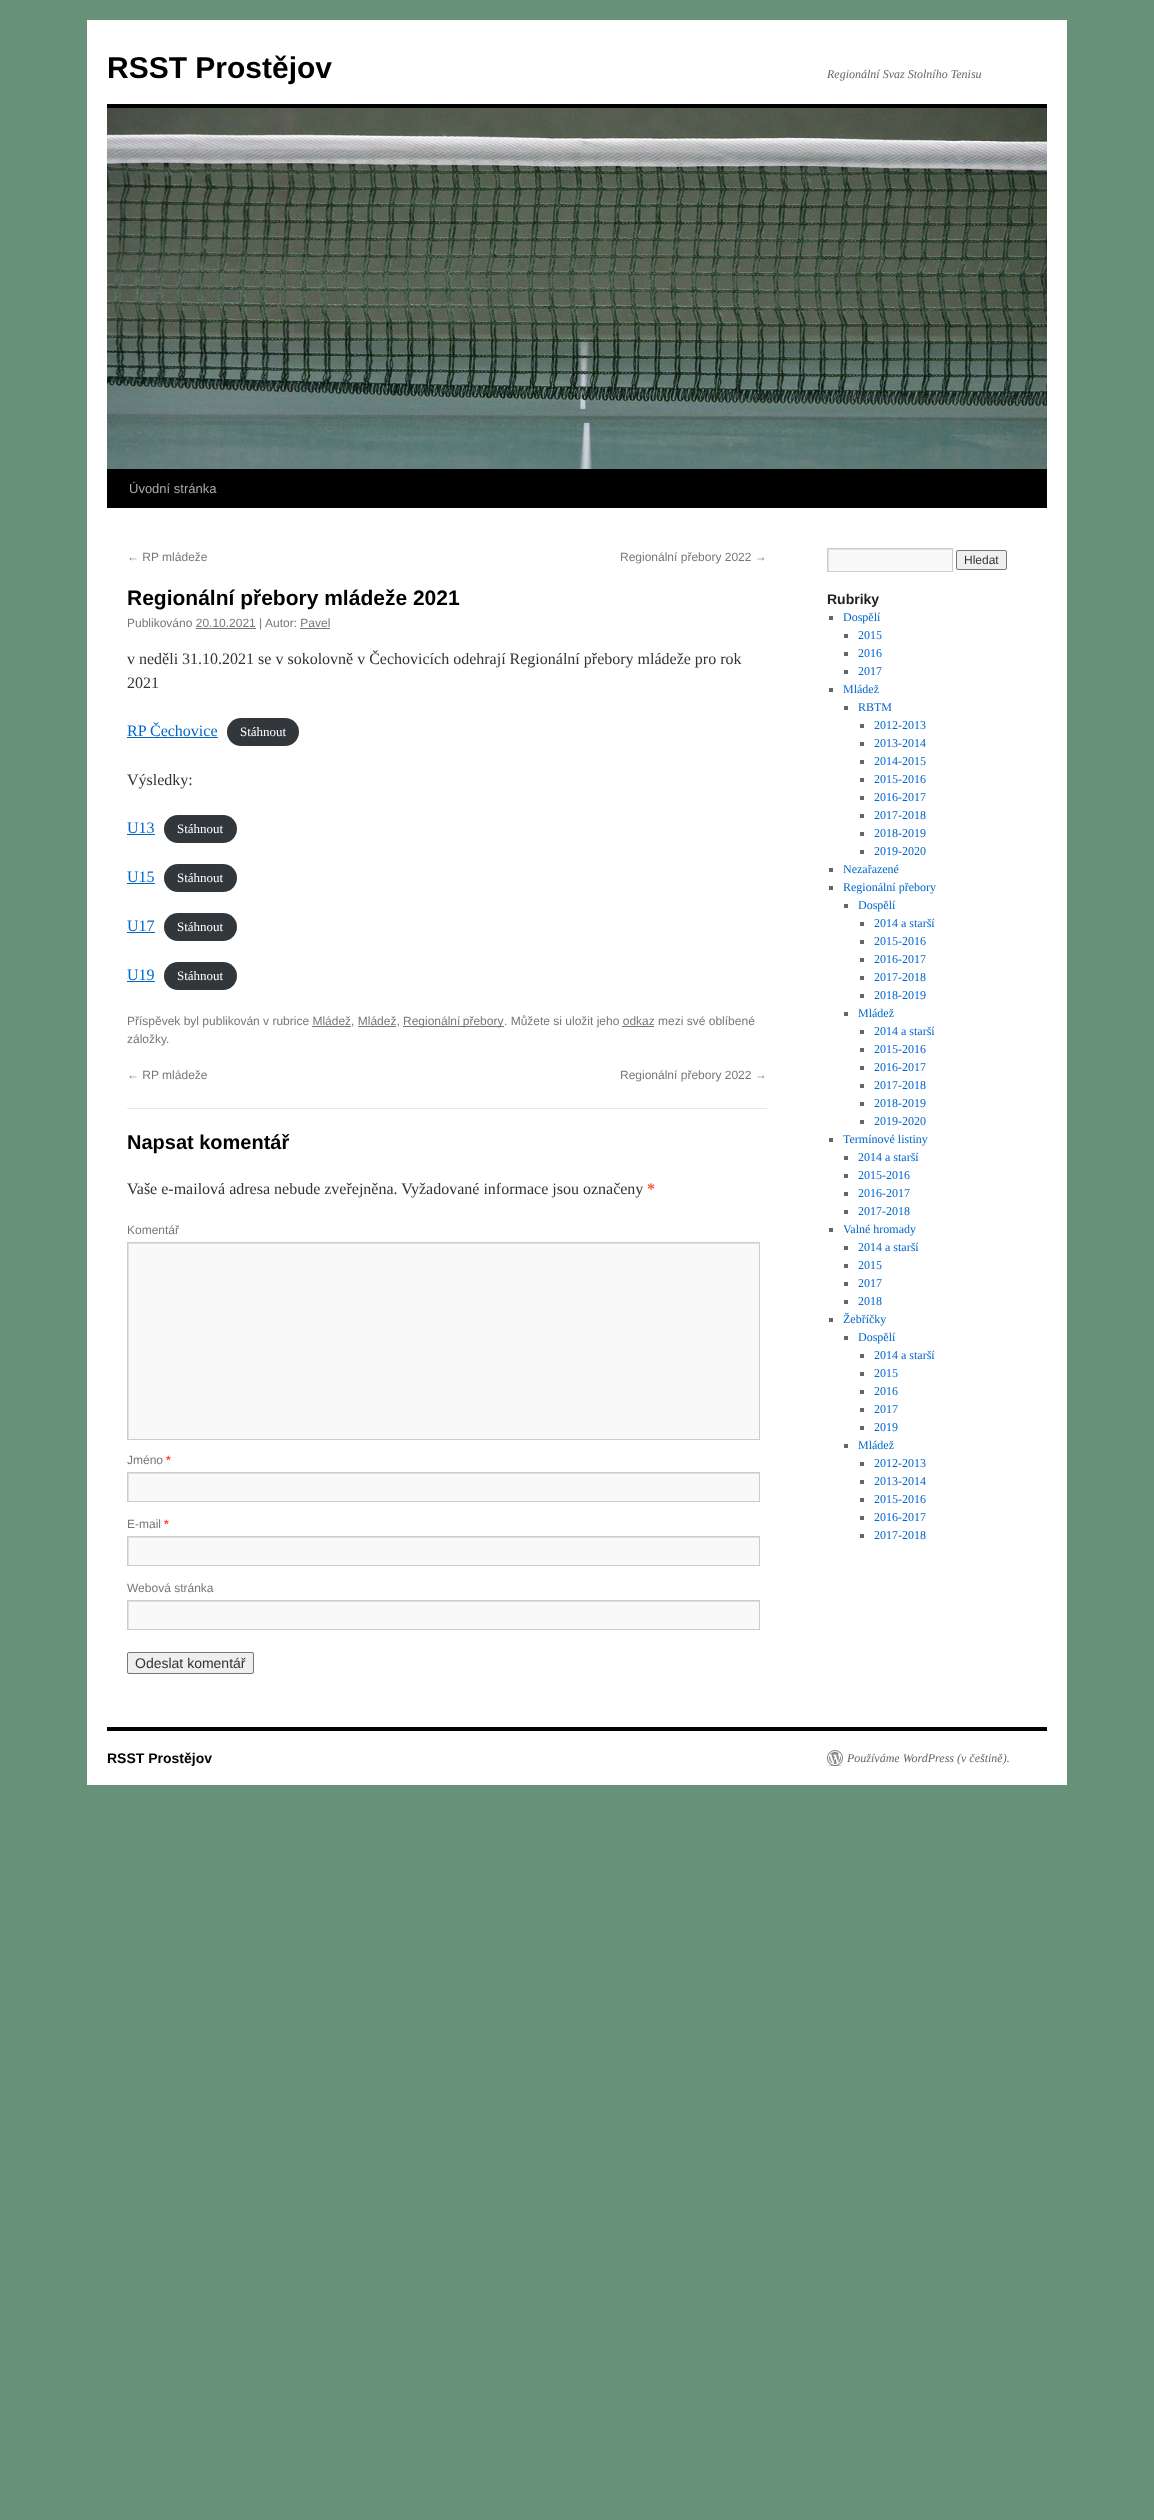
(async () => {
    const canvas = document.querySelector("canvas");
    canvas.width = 1154;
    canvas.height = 2520;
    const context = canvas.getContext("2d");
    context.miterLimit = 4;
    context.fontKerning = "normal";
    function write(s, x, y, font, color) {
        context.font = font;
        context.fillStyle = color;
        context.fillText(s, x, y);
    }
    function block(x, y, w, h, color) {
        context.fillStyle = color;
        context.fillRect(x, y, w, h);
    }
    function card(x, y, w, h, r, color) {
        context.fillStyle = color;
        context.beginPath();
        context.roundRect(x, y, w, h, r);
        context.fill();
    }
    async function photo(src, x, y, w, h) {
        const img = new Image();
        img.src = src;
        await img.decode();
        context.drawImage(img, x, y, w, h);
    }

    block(0, 0, 1154, 2520, "rgb(104, 145, 121)");
    block(87, 20, 980, 1765, "rgb(255, 255, 255)");
    write("RSST Prostějov", 107, 78, "bold 30px Liberation Sans", "rgb(0, 0, 0)");
    write("Regionální Svaz Stolního Tenisu", 827, 78, "italic 12px Liberation Serif", "rgb(102, 102, 102)");
    block(107, 104, 940, 4, "rgb(0, 0, 0)");
    block(107, 469, 940, 39, "rgb(0, 0, 0)");
    await photo("media/1.png", 107, 108, 940, 361);
    write("Úvodní stránka", 129, 493, "13px Liberation Sans", "rgb(170, 170, 170)");
    write("← RP mládeže", 127, 561, "12px Liberation Sans", "rgb(119, 119, 119)");
    write("Regionální přebory 2022 →", 620, 561, "12px Liberation Sans", "rgb(119, 119, 119)");
    write("Regionální přebory mládeže 2021", 127, 605, "bold 21px Liberation Sans", "rgb(0, 0, 0)");
    write("Publikováno 20.10.2021", 127, 627, "12px Liberation Sans", "rgb(119, 119, 119)");
    write("|", 259, 627, "12px Liberation Sans", "rgb(119, 119, 119)");
    write("Autor: Pavel", 265, 627, "12px Liberation Sans", "rgb(119, 119, 119)");
    block(196, 628, 60, 1, "rgb(119, 119, 119)");
    block(300, 628, 30, 1, "rgb(119, 119, 119)");
    write("v neděli 31.10.2021 se v sokolovně v Čechovicích odehrají Regionální přebory mládeže pro rok", 127, 664, "16px Liberation Serif", "rgb(51, 51, 51)");
    write("2021", 127, 688, "16px Liberation Serif", "rgb(51, 51, 51)");
    write("RP Čechovice", 127, 736, "16px Liberation Serif", "rgb(0, 102, 204)");
    block(127, 737, 91, 1, "rgb(0, 102, 204)");
    card(227, 718, 72, 28, 14, "rgb(50, 55, 60)");
    write("Stáhnout", 240, 736, "13px Liberation Serif", "rgb(255, 255, 255)");
    write("Výsledky:", 127, 785, "16px Liberation Serif", "rgb(51, 51, 51)");
    write("U13", 127, 833, "16px Liberation Serif", "rgb(0, 102, 204)");
    block(127, 834, 28, 1, "rgb(0, 102, 204)");
    card(164, 815, 73, 28, 14, "rgb(50, 55, 60)");
    write("Stáhnout", 177, 833, "13px Liberation Serif", "rgb(255, 255, 255)");
    write("U15", 127, 882, "16px Liberation Serif", "rgb(0, 102, 204)");
    block(127, 883, 28, 1, "rgb(0, 102, 204)");
    card(164, 864, 73, 28, 14, "rgb(50, 55, 60)");
    write("Stáhnout", 177, 882, "13px Liberation Serif", "rgb(255, 255, 255)");
    write("U17", 127, 931, "16px Liberation Serif", "rgb(0, 102, 204)");
    block(127, 932, 28, 1, "rgb(0, 102, 204)");
    card(164, 913, 73, 28, 14, "rgb(50, 55, 60)");
    write("Stáhnout", 177, 931, "13px Liberation Serif", "rgb(255, 255, 255)");
    write("U19", 127, 980, "16px Liberation Serif", "rgb(0, 102, 204)");
    block(127, 981, 28, 1, "rgb(0, 102, 204)");
    card(164, 962, 73, 28, 14, "rgb(50, 55, 60)");
    write("Stáhnout", 177, 980, "13px Liberation Serif", "rgb(255, 255, 255)");
    write("Příspěvek byl publikován v rubrice Mládež, Mládež,", 127, 1025, "12px Liberation Sans", "rgb(119, 119, 119)");
    block(403, 1026, 101, 1, "rgb(119, 119, 119)");
    context.wordSpacing = "-1px";
    write("Regionální přebory", 403, 1025, "12px Liberation Sans", "rgb(119, 119, 119)");
    context.wordSpacing = "0px";
    write(". Můžete si uložit jeho odkaz mezi své oblíbené", 504, 1025, "12px Liberation Sans", "rgb(119, 119, 119)");
    block(312, 1026, 39, 1, "rgb(119, 119, 119)");
    block(358, 1026, 38, 1, "rgb(119, 119, 119)");
    block(622, 1026, 32, 1, "rgb(119, 119, 119)");
    write("záložky.", 127, 1043, "12px Liberation Sans", "rgb(119, 119, 119)");
    write("← RP mládeže", 127, 1079, "12px Liberation Sans", "rgb(119, 119, 119)");
    write("Regionální přebory 2022 →", 620, 1079, "12px Liberation Sans", "rgb(119, 119, 119)");
    block(127, 1108, 640, 1, "rgb(231, 231, 231)");
    write("Napsat komentář", 127, 1149, "bold 20px Liberation Sans", "rgb(0, 0, 0)");
    write("Vaše e-mailová adresa nebude zveřejněna. Vyžadované informace jsou označeny", 127, 1194, "16px Liberation Serif", "rgb(51, 51, 51)");
    write("*", 647, 1194, "bold 16px Liberation Serif", "rgb(255, 75, 51)");
    write("Komentář", 127, 1234, "12px Liberation Sans", "rgb(119, 119, 119)");
    block(129, 1244, 630, 195, "rgb(249, 249, 249)");
    context.save();
    context.beginPath();
    context.rect(128, 1243, 631, 196);
    context.clip();
    context.fillStyle = "rgb(224, 224, 224)";
    context.beginPath();
    context.moveTo(29, 1144);
    context.lineTo(858, 1144);
    context.lineTo(858, 1538);
    context.lineTo(29, 1538);
    context.closePath();
    context.moveTo(129, 1244);
    context.lineTo(760, 1244);
    context.lineTo(760, 1440);
    context.lineTo(129, 1440);
    context.closePath();
    context.fill("evenodd");
    context.restore();
    context.strokeStyle = "rgb(204, 204, 204)";
    context.strokeRect(127.5, 1242.5, 632, 197);
    write("Jméno", 127, 1464, "12px Liberation Sans", "rgb(119, 119, 119)");
    write("*", 166, 1464, "bold 12px Liberation Sans", "rgb(255, 75, 51)");
    block(129, 1474, 630, 27, "rgb(249, 249, 249)");
    context.save();
    context.beginPath();
    context.rect(128, 1473, 631, 28);
    context.clip();
    context.fillStyle = "rgb(224, 224, 224)";
    context.beginPath();
    context.moveTo(29, 1374);
    context.lineTo(858, 1374);
    context.lineTo(858, 1600);
    context.lineTo(29, 1600);
    context.closePath();
    context.moveTo(129, 1474);
    context.lineTo(760, 1474);
    context.lineTo(760, 1502);
    context.lineTo(129, 1502);
    context.closePath();
    context.fill("evenodd");
    context.restore();
    context.strokeRect(127.5, 1472.5, 632, 29);
    write("E-mail", 127, 1528, "12px Liberation Sans", "rgb(119, 119, 119)");
    write("*", 164, 1528, "bold 12px Liberation Sans", "rgb(255, 75, 51)");
    block(129, 1538, 630, 27, "rgb(249, 249, 249)");
    context.save();
    context.beginPath();
    context.rect(128, 1537, 631, 28);
    context.clip();
    context.fillStyle = "rgb(224, 224, 224)";
    context.beginPath();
    context.moveTo(29, 1438);
    context.lineTo(858, 1438);
    context.lineTo(858, 1664);
    context.lineTo(29, 1664);
    context.closePath();
    context.moveTo(129, 1538);
    context.lineTo(760, 1538);
    context.lineTo(760, 1566);
    context.lineTo(129, 1566);
    context.closePath();
    context.fill("evenodd");
    context.restore();
    context.strokeRect(127.5, 1536.5, 632, 29);
    write("Webová stránka", 127, 1592, "12px Liberation Sans", "rgb(119, 119, 119)");
    block(129, 1602, 630, 27, "rgb(249, 249, 249)");
    context.save();
    context.beginPath();
    context.rect(128, 1601, 631, 28);
    context.clip();
    context.fillStyle = "rgb(224, 224, 224)";
    context.beginPath();
    context.moveTo(29, 1502);
    context.lineTo(858, 1502);
    context.lineTo(858, 1728);
    context.lineTo(29, 1728);
    context.closePath();
    context.moveTo(129, 1602);
    context.lineTo(760, 1602);
    context.lineTo(760, 1630);
    context.lineTo(129, 1630);
    context.closePath();
    context.fill("evenodd");
    context.restore();
    context.strokeRect(127.5, 1600.5, 632, 29);
    context.fillStyle = "rgb(239, 239, 239)";
    context.beginPath();
    context.roundRect(127.5, 1652.5, 126, 21, 1.5);
    context.fill();
    context.strokeStyle = "rgb(118, 118, 118)";
    context.stroke();
    write("Odeslat komentář", 135, 1668, "14px Liberation Sans", "rgb(51, 51, 51)");
    block(829, 550, 123, 21, "rgb(249, 249, 249)");
    context.save();
    context.beginPath();
    context.rect(828, 549, 124, 22);
    context.clip();
    context.fillStyle = "rgb(224, 224, 224)";
    context.beginPath();
    context.moveTo(729, 450);
    context.lineTo(1051, 450);
    context.lineTo(1051, 670);
    context.lineTo(729, 670);
    context.closePath();
    context.moveTo(829, 550);
    context.lineTo(953, 550);
    context.lineTo(953, 572);
    context.lineTo(829, 572);
    context.closePath();
    context.fill("evenodd");
    context.restore();
    context.strokeStyle = "rgb(204, 204, 204)";
    context.strokeRect(827.5, 548.5, 125, 23);
    context.fillStyle = "rgb(239, 239, 239)";
    context.beginPath();
    context.roundRect(956.5, 550.5, 50, 19, 1.5);
    context.fill();
    context.strokeStyle = "rgb(118, 118, 118)";
    context.stroke();
    write("Hledat", 964, 564, "12px Liberation Sans", "rgb(51, 51, 51)");
    write("Rubriky", 827, 604, "bold 14px Liberation Sans", "rgb(34, 34, 34)");
    block(829, 616, 4, 4, "rgb(102, 102, 102)");
    write("Dospělí", 843, 621, "12px Liberation Serif", "rgb(0, 102, 204)");
    block(844, 634, 4, 4, "rgb(102, 102, 102)");
    write("2015", 858, 639, "12px Liberation Serif", "rgb(0, 102, 204)");
    block(844, 652, 4, 4, "rgb(102, 102, 102)");
    write("2016", 858, 657, "12px Liberation Serif", "rgb(0, 102, 204)");
    block(844, 670, 4, 4, "rgb(102, 102, 102)");
    write("2017", 858, 675, "12px Liberation Serif", "rgb(0, 102, 204)");
    block(829, 688, 4, 4, "rgb(102, 102, 102)");
    write("Mládež", 843, 693, "12px Liberation Serif", "rgb(0, 102, 204)");
    block(844, 706, 4, 4, "rgb(102, 102, 102)");
    write("RBTM", 858, 711, "12px Liberation Serif", "rgb(0, 102, 204)");
    block(860, 724, 4, 4, "rgb(102, 102, 102)");
    write("2012-2013", 874, 729, "12px Liberation Serif", "rgb(0, 102, 204)");
    block(860, 742, 4, 4, "rgb(102, 102, 102)");
    write("2013-2014", 874, 747, "12px Liberation Serif", "rgb(0, 102, 204)");
    block(860, 760, 4, 4, "rgb(102, 102, 102)");
    write("2014-2015", 874, 765, "12px Liberation Serif", "rgb(0, 102, 204)");
    block(860, 778, 4, 4, "rgb(102, 102, 102)");
    write("2015-2016", 874, 783, "12px Liberation Serif", "rgb(0, 102, 204)");
    block(860, 796, 4, 4, "rgb(102, 102, 102)");
    write("2016-2017", 874, 801, "12px Liberation Serif", "rgb(0, 102, 204)");
    block(860, 814, 4, 4, "rgb(102, 102, 102)");
    write("2017-2018", 874, 819, "12px Liberation Serif", "rgb(0, 102, 204)");
    block(860, 832, 4, 4, "rgb(102, 102, 102)");
    write("2018-2019", 874, 837, "12px Liberation Serif", "rgb(0, 102, 204)");
    block(860, 850, 4, 4, "rgb(102, 102, 102)");
    write("2019-2020", 874, 855, "12px Liberation Serif", "rgb(0, 102, 204)");
    block(829, 868, 4, 4, "rgb(102, 102, 102)");
    write("Nezařazené", 843, 873, "12px Liberation Serif", "rgb(0, 102, 204)");
    block(829, 886, 4, 4, "rgb(102, 102, 102)");
    write("Regionální přebory", 843, 891, "12px Liberation Serif", "rgb(0, 102, 204)");
    block(844, 904, 4, 4, "rgb(102, 102, 102)");
    write("Dospělí", 858, 909, "12px Liberation Serif", "rgb(0, 102, 204)");
    block(860, 922, 4, 4, "rgb(102, 102, 102)");
    write("2014 a starší", 874, 927, "12px Liberation Serif", "rgb(0, 102, 204)");
    block(860, 940, 4, 4, "rgb(102, 102, 102)");
    write("2015-2016", 874, 945, "12px Liberation Serif", "rgb(0, 102, 204)");
    block(860, 958, 4, 4, "rgb(102, 102, 102)");
    write("2016-2017", 874, 963, "12px Liberation Serif", "rgb(0, 102, 204)");
    block(860, 976, 4, 4, "rgb(102, 102, 102)");
    write("2017-2018", 874, 981, "12px Liberation Serif", "rgb(0, 102, 204)");
    block(860, 994, 4, 4, "rgb(102, 102, 102)");
    write("2018-2019", 874, 999, "12px Liberation Serif", "rgb(0, 102, 204)");
    block(844, 1012, 4, 4, "rgb(102, 102, 102)");
    write("Mládež", 858, 1017, "12px Liberation Serif", "rgb(0, 102, 204)");
    block(860, 1030, 4, 4, "rgb(102, 102, 102)");
    write("2014 a starší", 874, 1035, "12px Liberation Serif", "rgb(0, 102, 204)");
    block(860, 1048, 4, 4, "rgb(102, 102, 102)");
    write("2015-2016", 874, 1053, "12px Liberation Serif", "rgb(0, 102, 204)");
    block(860, 1066, 4, 4, "rgb(102, 102, 102)");
    write("2016-2017", 874, 1071, "12px Liberation Serif", "rgb(0, 102, 204)");
    block(860, 1084, 4, 4, "rgb(102, 102, 102)");
    write("2017-2018", 874, 1089, "12px Liberation Serif", "rgb(0, 102, 204)");
    block(860, 1102, 4, 4, "rgb(102, 102, 102)");
    write("2018-2019", 874, 1107, "12px Liberation Serif", "rgb(0, 102, 204)");
    block(860, 1120, 4, 4, "rgb(102, 102, 102)");
    write("2019-2020", 874, 1125, "12px Liberation Serif", "rgb(0, 102, 204)");
    block(829, 1138, 4, 4, "rgb(102, 102, 102)");
    write("Termínové listiny", 843, 1143, "12px Liberation Serif", "rgb(0, 102, 204)");
    block(844, 1156, 4, 4, "rgb(102, 102, 102)");
    write("2014 a starší", 858, 1161, "12px Liberation Serif", "rgb(0, 102, 204)");
    block(844, 1174, 4, 4, "rgb(102, 102, 102)");
    write("2015-2016", 858, 1179, "12px Liberation Serif", "rgb(0, 102, 204)");
    block(844, 1192, 4, 4, "rgb(102, 102, 102)");
    write("2016-2017", 858, 1197, "12px Liberation Serif", "rgb(0, 102, 204)");
    block(844, 1210, 4, 4, "rgb(102, 102, 102)");
    write("2017-2018", 858, 1215, "12px Liberation Serif", "rgb(0, 102, 204)");
    block(829, 1228, 4, 4, "rgb(102, 102, 102)");
    write("Valné hromady", 843, 1233, "12px Liberation Serif", "rgb(0, 102, 204)");
    block(844, 1246, 4, 4, "rgb(102, 102, 102)");
    write("2014 a starší", 858, 1251, "12px Liberation Serif", "rgb(0, 102, 204)");
    block(844, 1264, 4, 4, "rgb(102, 102, 102)");
    write("2015", 858, 1269, "12px Liberation Serif", "rgb(0, 102, 204)");
    block(844, 1282, 4, 4, "rgb(102, 102, 102)");
    write("2017", 858, 1287, "12px Liberation Serif", "rgb(0, 102, 204)");
    block(844, 1300, 4, 4, "rgb(102, 102, 102)");
    write("2018", 858, 1305, "12px Liberation Serif", "rgb(0, 102, 204)");
    block(829, 1318, 4, 4, "rgb(102, 102, 102)");
    write("Žebříčky", 843, 1323, "12px Liberation Serif", "rgb(0, 102, 204)");
    block(844, 1336, 4, 4, "rgb(102, 102, 102)");
    write("Dospělí", 858, 1341, "12px Liberation Serif", "rgb(0, 102, 204)");
    block(860, 1354, 4, 4, "rgb(102, 102, 102)");
    write("2014 a starší", 874, 1359, "12px Liberation Serif", "rgb(0, 102, 204)");
    block(860, 1372, 4, 4, "rgb(102, 102, 102)");
    write("2015", 874, 1377, "12px Liberation Serif", "rgb(0, 102, 204)");
    block(860, 1390, 4, 4, "rgb(102, 102, 102)");
    write("2016", 874, 1395, "12px Liberation Serif", "rgb(0, 102, 204)");
    block(860, 1408, 4, 4, "rgb(102, 102, 102)");
    write("2017", 874, 1413, "12px Liberation Serif", "rgb(0, 102, 204)");
    block(860, 1426, 4, 4, "rgb(102, 102, 102)");
    write("2019", 874, 1431, "12px Liberation Serif", "rgb(0, 102, 204)");
    block(844, 1444, 4, 4, "rgb(102, 102, 102)");
    write("Mládež", 858, 1449, "12px Liberation Serif", "rgb(0, 102, 204)");
    block(860, 1462, 4, 4, "rgb(102, 102, 102)");
    write("2012-2013", 874, 1467, "12px Liberation Serif", "rgb(0, 102, 204)");
    block(860, 1480, 4, 4, "rgb(102, 102, 102)");
    write("2013-2014", 874, 1485, "12px Liberation Serif", "rgb(0, 102, 204)");
    block(860, 1498, 4, 4, "rgb(102, 102, 102)");
    write("2015-2016", 874, 1503, "12px Liberation Serif", "rgb(0, 102, 204)");
    block(860, 1516, 4, 4, "rgb(102, 102, 102)");
    write("2016-2017", 874, 1521, "12px Liberation Serif", "rgb(0, 102, 204)");
    block(860, 1534, 4, 4, "rgb(102, 102, 102)");
    write("2017-2018", 874, 1539, "12px Liberation Serif", "rgb(0, 102, 204)");
    block(107, 1727, 940, 4, "rgb(0, 0, 0)");
    write("RSST Prostějov", 107, 1763, "bold 14px Liberation Sans", "rgb(0, 0, 0)");
    await photo("media/2.png", 827, 1750, 16, 16);
    write("Používáme WordPress (v češtině).", 847, 1762, "italic 12px Liberation Serif", "rgb(102, 102, 102)");
})();
